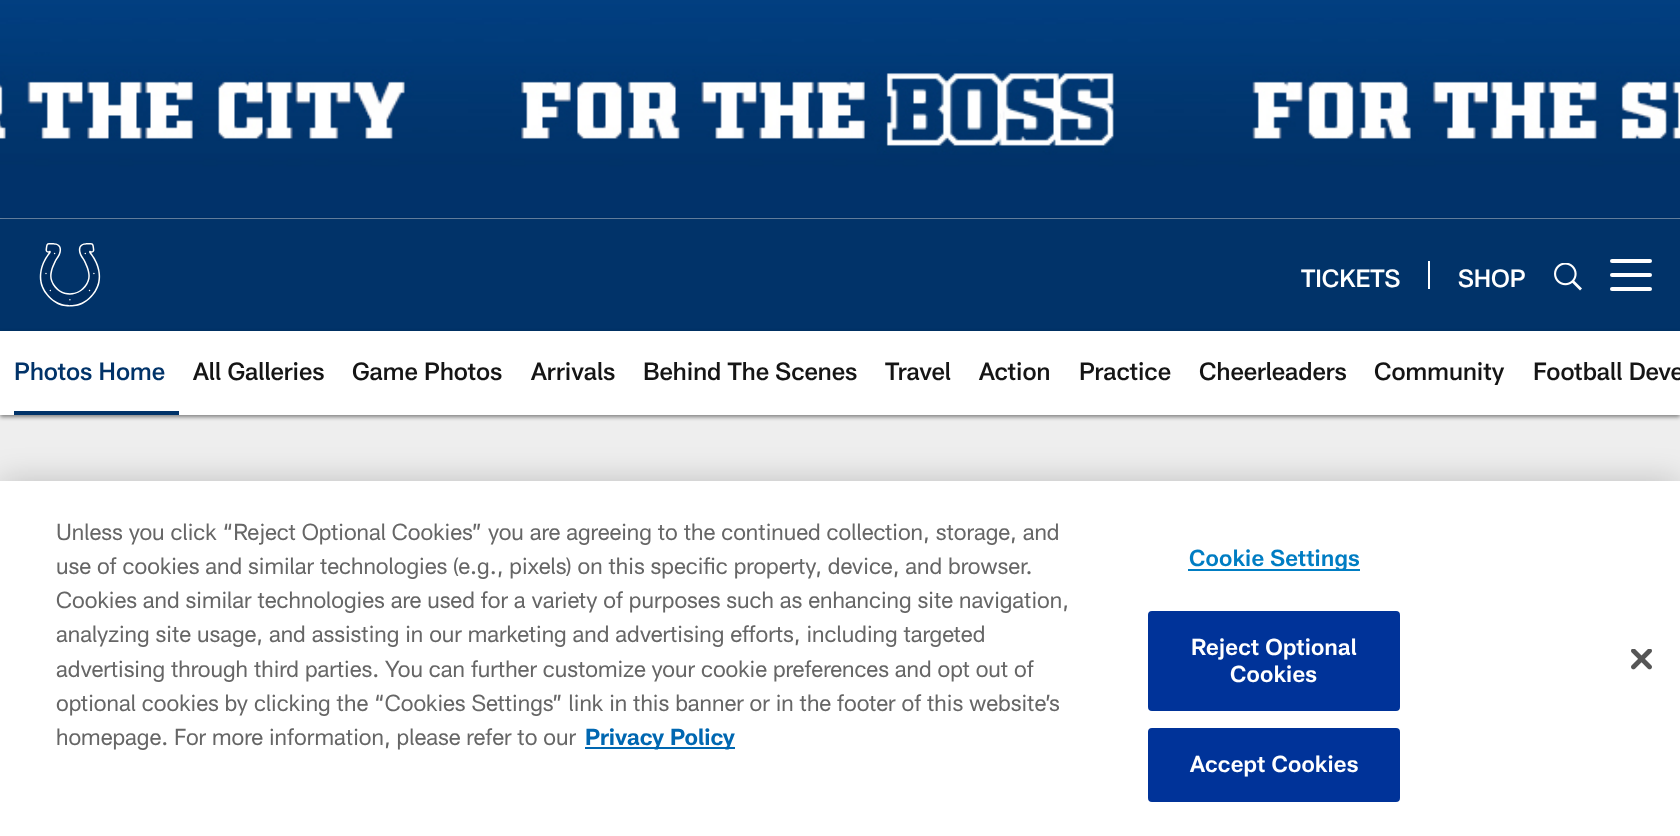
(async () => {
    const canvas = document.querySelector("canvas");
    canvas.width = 1680;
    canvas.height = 836;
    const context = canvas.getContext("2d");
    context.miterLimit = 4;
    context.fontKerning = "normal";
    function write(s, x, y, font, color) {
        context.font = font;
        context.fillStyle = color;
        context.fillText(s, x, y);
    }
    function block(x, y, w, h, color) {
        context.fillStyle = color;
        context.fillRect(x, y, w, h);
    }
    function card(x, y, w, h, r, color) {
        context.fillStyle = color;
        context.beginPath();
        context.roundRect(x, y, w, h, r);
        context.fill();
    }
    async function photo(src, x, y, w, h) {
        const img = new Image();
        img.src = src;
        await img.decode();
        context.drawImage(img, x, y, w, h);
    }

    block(0, 0, 1680, 836, "rgb(238, 238, 238)");
    await photo("media/1.png", 0, 0, 1680, 219);
    context.fillStyle = "rgba(0, 0, 0, 0.47)";
    context.filter = "blur(2px)";
    context.beginPath();
    context.rect(0, 221, 1680, 112);
    context.fill();
    context.filter = "none";
    block(0, 219, 1680, 112, "rgb(1, 51, 105)");
    await photo("media/2.png", 39, 243, 62, 64);
    write("TICKETS", 1301, 287, "500 24.5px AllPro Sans", "rgb(255, 255, 255)");
    block(1428, 261, 2, 28, "rgb(255, 255, 255)");
    write("SHOP", 1458, 287, "500 24.5px AllPro Sans", "rgb(255, 255, 255)");
    await photo("media/3.png", 1554, 263, 28, 28);
    card(1610, 273, 42, 4, 2, "rgb(255, 255, 255)");
    card(1610, 259, 42, 4, 2, "rgb(255, 255, 255)");
    card(1610, 287, 42, 4, 2, "rgb(255, 255, 255)");
    context.fillStyle = "rgba(0, 0, 0, 0.47)";
    context.filter = "blur(2px)";
    context.beginPath();
    context.rect(0, 333, 1680, 84);
    context.fill();
    context.filter = "none";
    block(0, 331, 1680, 84, "rgb(255, 255, 255)");
    block(14, 411, 165, 4, "rgb(1, 51, 105)");
    write("Photos Home", 14, 380, "500 24.5px AllPro Sans", "rgb(1, 51, 105)");
    write("All Galleries", 193, 380, "500 24.5px AllPro Sans", "rgb(21, 21, 21)");
    write("Game Photos", 352, 380, "500 24.5px AllPro Sans", "rgb(21, 21, 21)");
    write("Arrivals", 531, 380, "500 24.5px AllPro Sans", "rgb(21, 21, 21)");
    write("Behind The Scenes", 643, 380, "500 24.5px AllPro Sans", "rgb(21, 21, 21)");
    write("Travel", 885, 380, "500 24.5px AllPro Sans", "rgb(21, 21, 21)");
    write("Action", 979, 380, "500 24.5px AllPro Sans", "rgb(21, 21, 21)");
    write("Practice", 1079, 380, "500 24.5px AllPro Sans", "rgb(21, 21, 21)");
    write("Cheerleaders", 1199, 380, "500 24.5px AllPro Sans", "rgb(21, 21, 21)");
    write("Community", 1374, 380, "500 24.5px AllPro Sans", "rgb(21, 21, 21)");
    write("Football Deve", 1533, 380, "500 24.5px AllPro Sans", "rgb(21, 21, 21)");
    context.fillStyle = "rgba(0, 0, 0, 0.2)";
    context.filter = "blur(16px)";
    context.beginPath();
    context.rect(0, 481, 1680, 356);
    context.fill();
    context.filter = "none";
    block(0, 481, 1680, 355, "rgb(255, 255, 255)");
    write("Unless you click “Reject Optional Cookies” you are agreeing to the continued collection, storage, and", 56, 540, "22.75px AllPro Sans", "rgb(102, 102, 102)");
    write("use of cookies and similar technologies (e.g., pixels) on this specific property, device, and browser.", 56, 574, "22.75px AllPro Sans", "rgb(102, 102, 102)");
    write("Cookies and similar technologies are used for a variety of purposes such as enhancing site navigation,", 56, 608, "22.75px AllPro Sans", "rgb(102, 102, 102)");
    write("analyzing site usage, and assisting in our marketing and advertising efforts, including targeted", 56, 642, "22.75px AllPro Sans", "rgb(102, 102, 102)");
    write("advertising through third parties. You can further customize your cookie preferences and opt out of", 56, 677, "22.75px AllPro Sans", "rgb(102, 102, 102)");
    write("optional cookies by clicking the “Cookies Settings” link in this banner or in the footer of this website’s", 56, 711, "22.75px AllPro Sans", "rgb(102, 102, 102)");
    write("homepage. For more information, please refer to our", 56, 745, "22.75px AllPro Sans", "rgb(102, 102, 102)");
    block(585, 747, 150, 2, "rgb(0, 103, 177)");
    write("Privacy Policy", 585, 745, "bold 22.75px AllPro Sans", "rgb(0, 103, 177)");
    block(1188, 569, 172, 2, "rgb(0, 125, 195)");
    context.letterSpacing = "0.25px";
    write("Cookie Settings", 1189, 566, "600 22.75px AllPro Sans", "rgb(0, 125, 195)");
    context.fillStyle = "rgb(0, 51, 153)";
    context.beginPath();
    context.roundRect(1149, 612, 250, 98, 3);
    context.fill();
    context.strokeStyle = "rgb(0, 51, 153)";
    context.lineWidth = 2;
    context.stroke();
    write("Reject Optional", 1191, 655, "600 22.75px AllPro Sans", "rgb(255, 255, 255)");
    write("Cookies", 1230, 682, "600 22.75px AllPro Sans", "rgb(255, 255, 255)");
    context.fillStyle = "rgb(0, 51, 153)";
    context.beginPath();
    context.roundRect(1149, 729, 250, 72, 3);
    context.fill();
    context.stroke();
    write("Accept Cookies", 1190, 772, "600 22.75px AllPro Sans", "rgb(255, 255, 255)");
    await photo("media/4.png", 1631, 649, 21, 21);
})();
